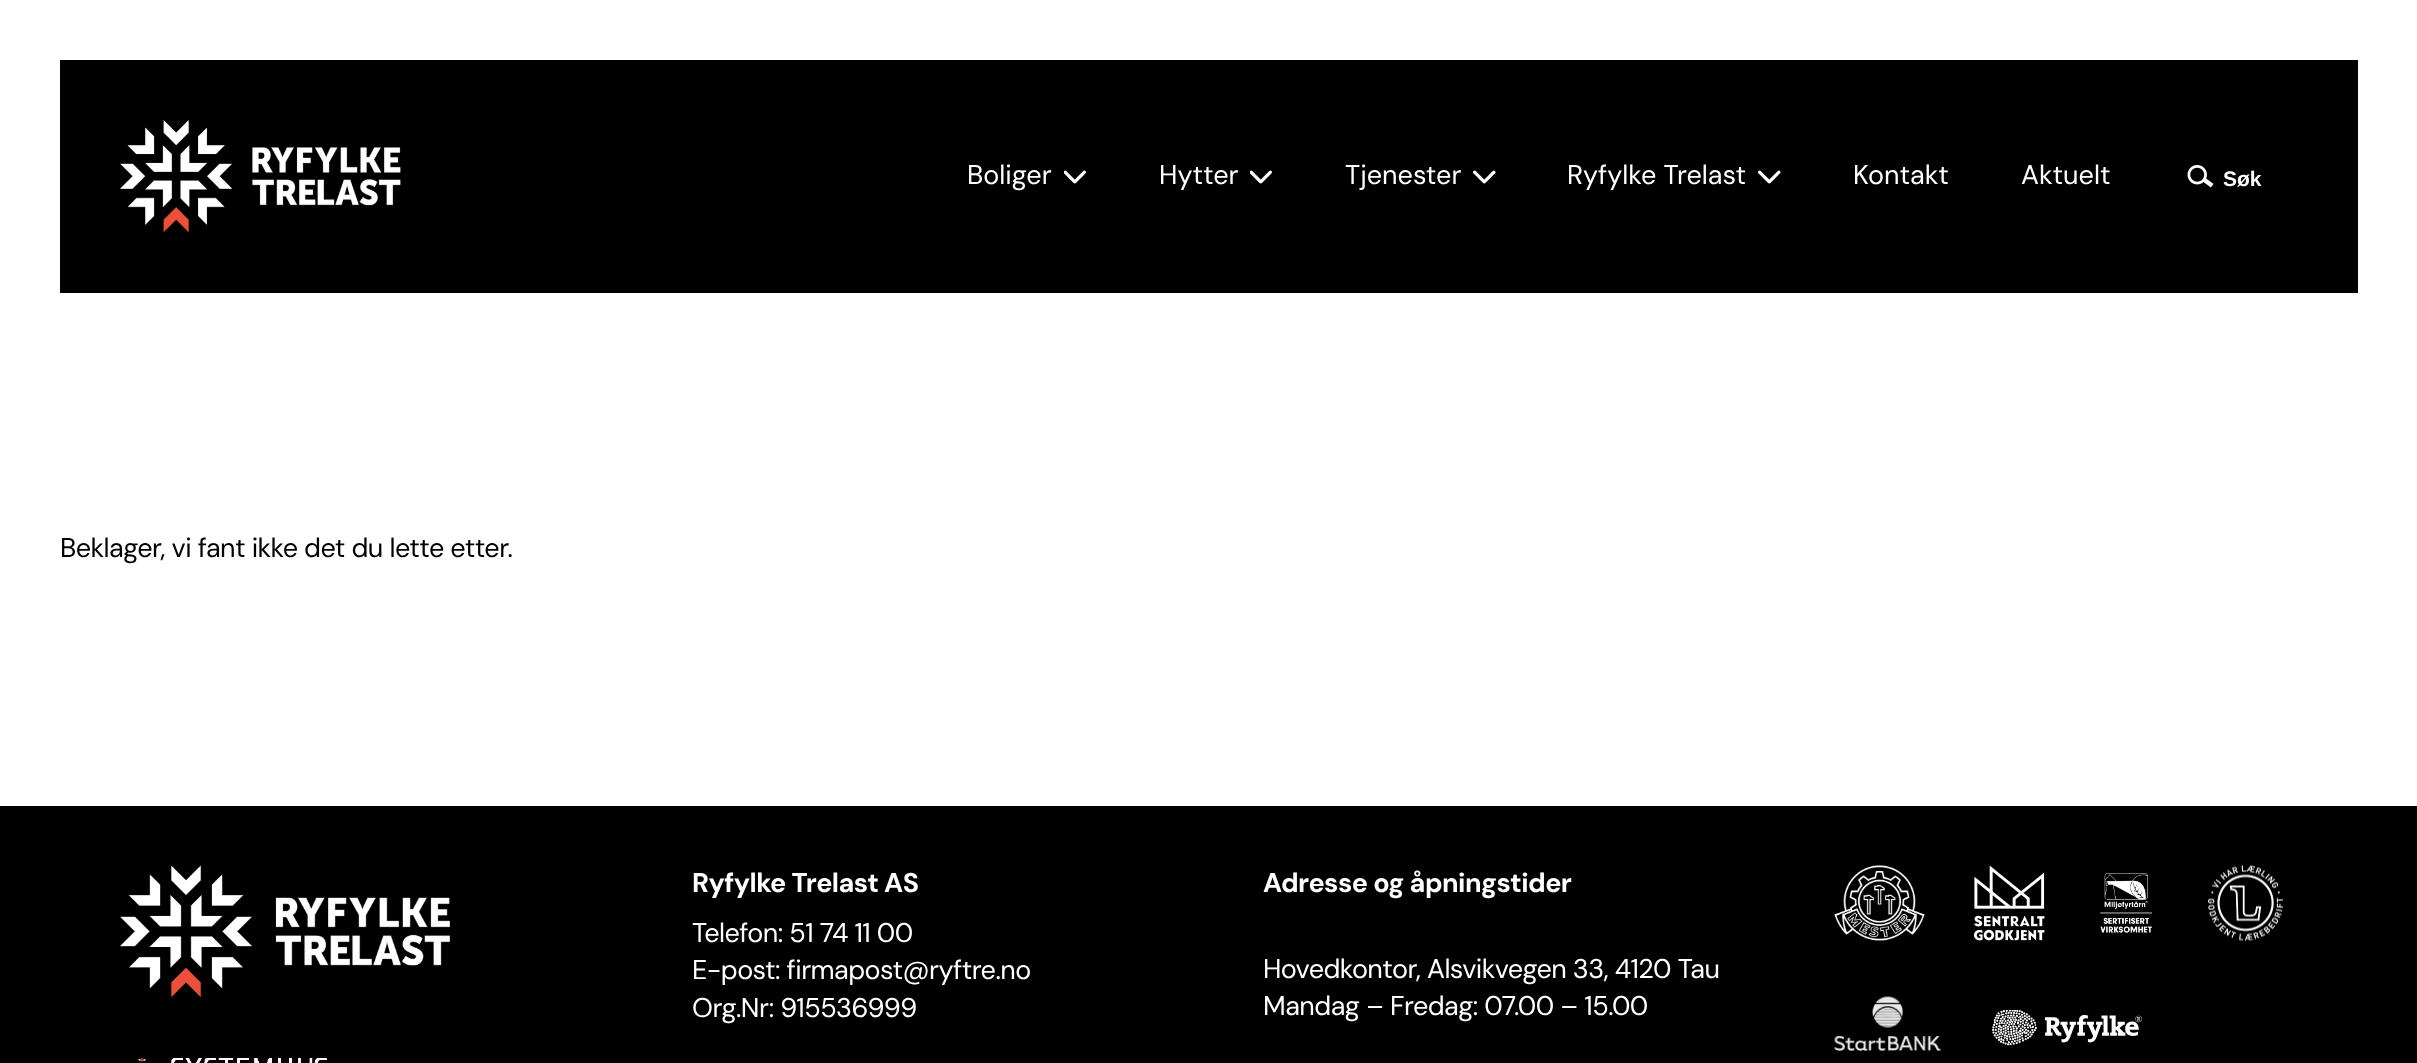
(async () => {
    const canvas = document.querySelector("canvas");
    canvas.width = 2417;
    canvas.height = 1063;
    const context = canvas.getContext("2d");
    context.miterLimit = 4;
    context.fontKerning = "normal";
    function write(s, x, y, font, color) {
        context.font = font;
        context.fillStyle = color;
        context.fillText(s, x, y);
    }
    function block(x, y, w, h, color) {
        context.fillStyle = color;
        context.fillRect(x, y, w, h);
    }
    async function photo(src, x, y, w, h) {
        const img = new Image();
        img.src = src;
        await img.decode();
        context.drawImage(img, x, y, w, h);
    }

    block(0, 0, 2417, 1063, "rgb(255, 255, 255)");
    block(60, 60, 2298, 233, "rgb(0, 0, 0)");
    await photo("media/1.png", 120, 120, 281, 113);
    write("Boliger", 967, 184, "27px DM Sans", "rgb(255, 255, 255)");
    await photo("media/2.png", 1064, 170, 22, 14);
    write("Hytter", 1159, 184, "27px DM Sans", "rgb(255, 255, 255)");
    await photo("media/2.png", 1250, 170, 22, 14);
    write("Tjenester", 1345, 184, "27px DM Sans", "rgb(255, 255, 255)");
    await photo("media/3.png", 1473, 170, 23, 14);
    write("Ryfylke Trelast", 1567, 184, "27px DM Sans", "rgb(255, 255, 255)");
    await photo("media/3.png", 1758, 170, 23, 14);
    write("Kontakt", 1853, 184, "27px DM Sans", "rgb(255, 255, 255)");
    write("Aktuelt", 2021, 184, "27px DM Sans", "rgb(255, 255, 255)");
    await photo("media/4.png", 2187, 165, 27, 23);
    write("Søk", 2223, 186, "bold 21px Liberation Sans", "rgb(255, 255, 255)");
    context.letterSpacing = "-0.55px";
    write("Beklager, vi fant ikke det du lette etter.", 60, 557, "27px DM Sans", "rgb(0, 0, 0)");
    block(0, 806, 2417, 257, "rgb(0, 0, 0)");
    await photo("media/5.png", 120, 865, 330, 133);
    await photo("media/6.png", 138, 1057, 190, 6);
    write("Ryfylke Trelast AS", 692, 892, "bold 27px DM Sans", "rgb(255, 255, 255)");
    write("Telefon: 51 74 11 00", 692, 942, "27px DM Sans", "rgb(255, 255, 255)");
    write("E-post: firmapost@ryftre.no", 692, 979, "27px DM Sans", "rgb(255, 255, 255)");
    write("Org.Nr: 915536999", 692, 1017, "27px DM Sans", "rgb(255, 255, 255)");
    write("Adresse og åpningstider", 1263, 892, "bold 27px DM Sans", "rgb(255, 255, 255)");
    write("Hovedkontor, Alsvikvegen 33, 4120 Tau", 1263, 978, "27px DM Sans", "rgb(255, 255, 255)");
    write("Mandag – Fredag: 07.00 – 15.00", 1263, 1015, "27px DM Sans", "rgb(255, 255, 255)");
    await photo("media/7.png", 1834, 865, 91, 76);
    await photo("media/8.png", 1974, 866, 71, 75);
    await photo("media/9.png", 2100, 873, 53, 60);
    await photo("media/10.png", 2208, 865, 75, 76);
    await photo("media/11.png", 1834, 996, 107, 55);
    await photo("media/12.png", 1992, 1010, 150, 36);
})();
